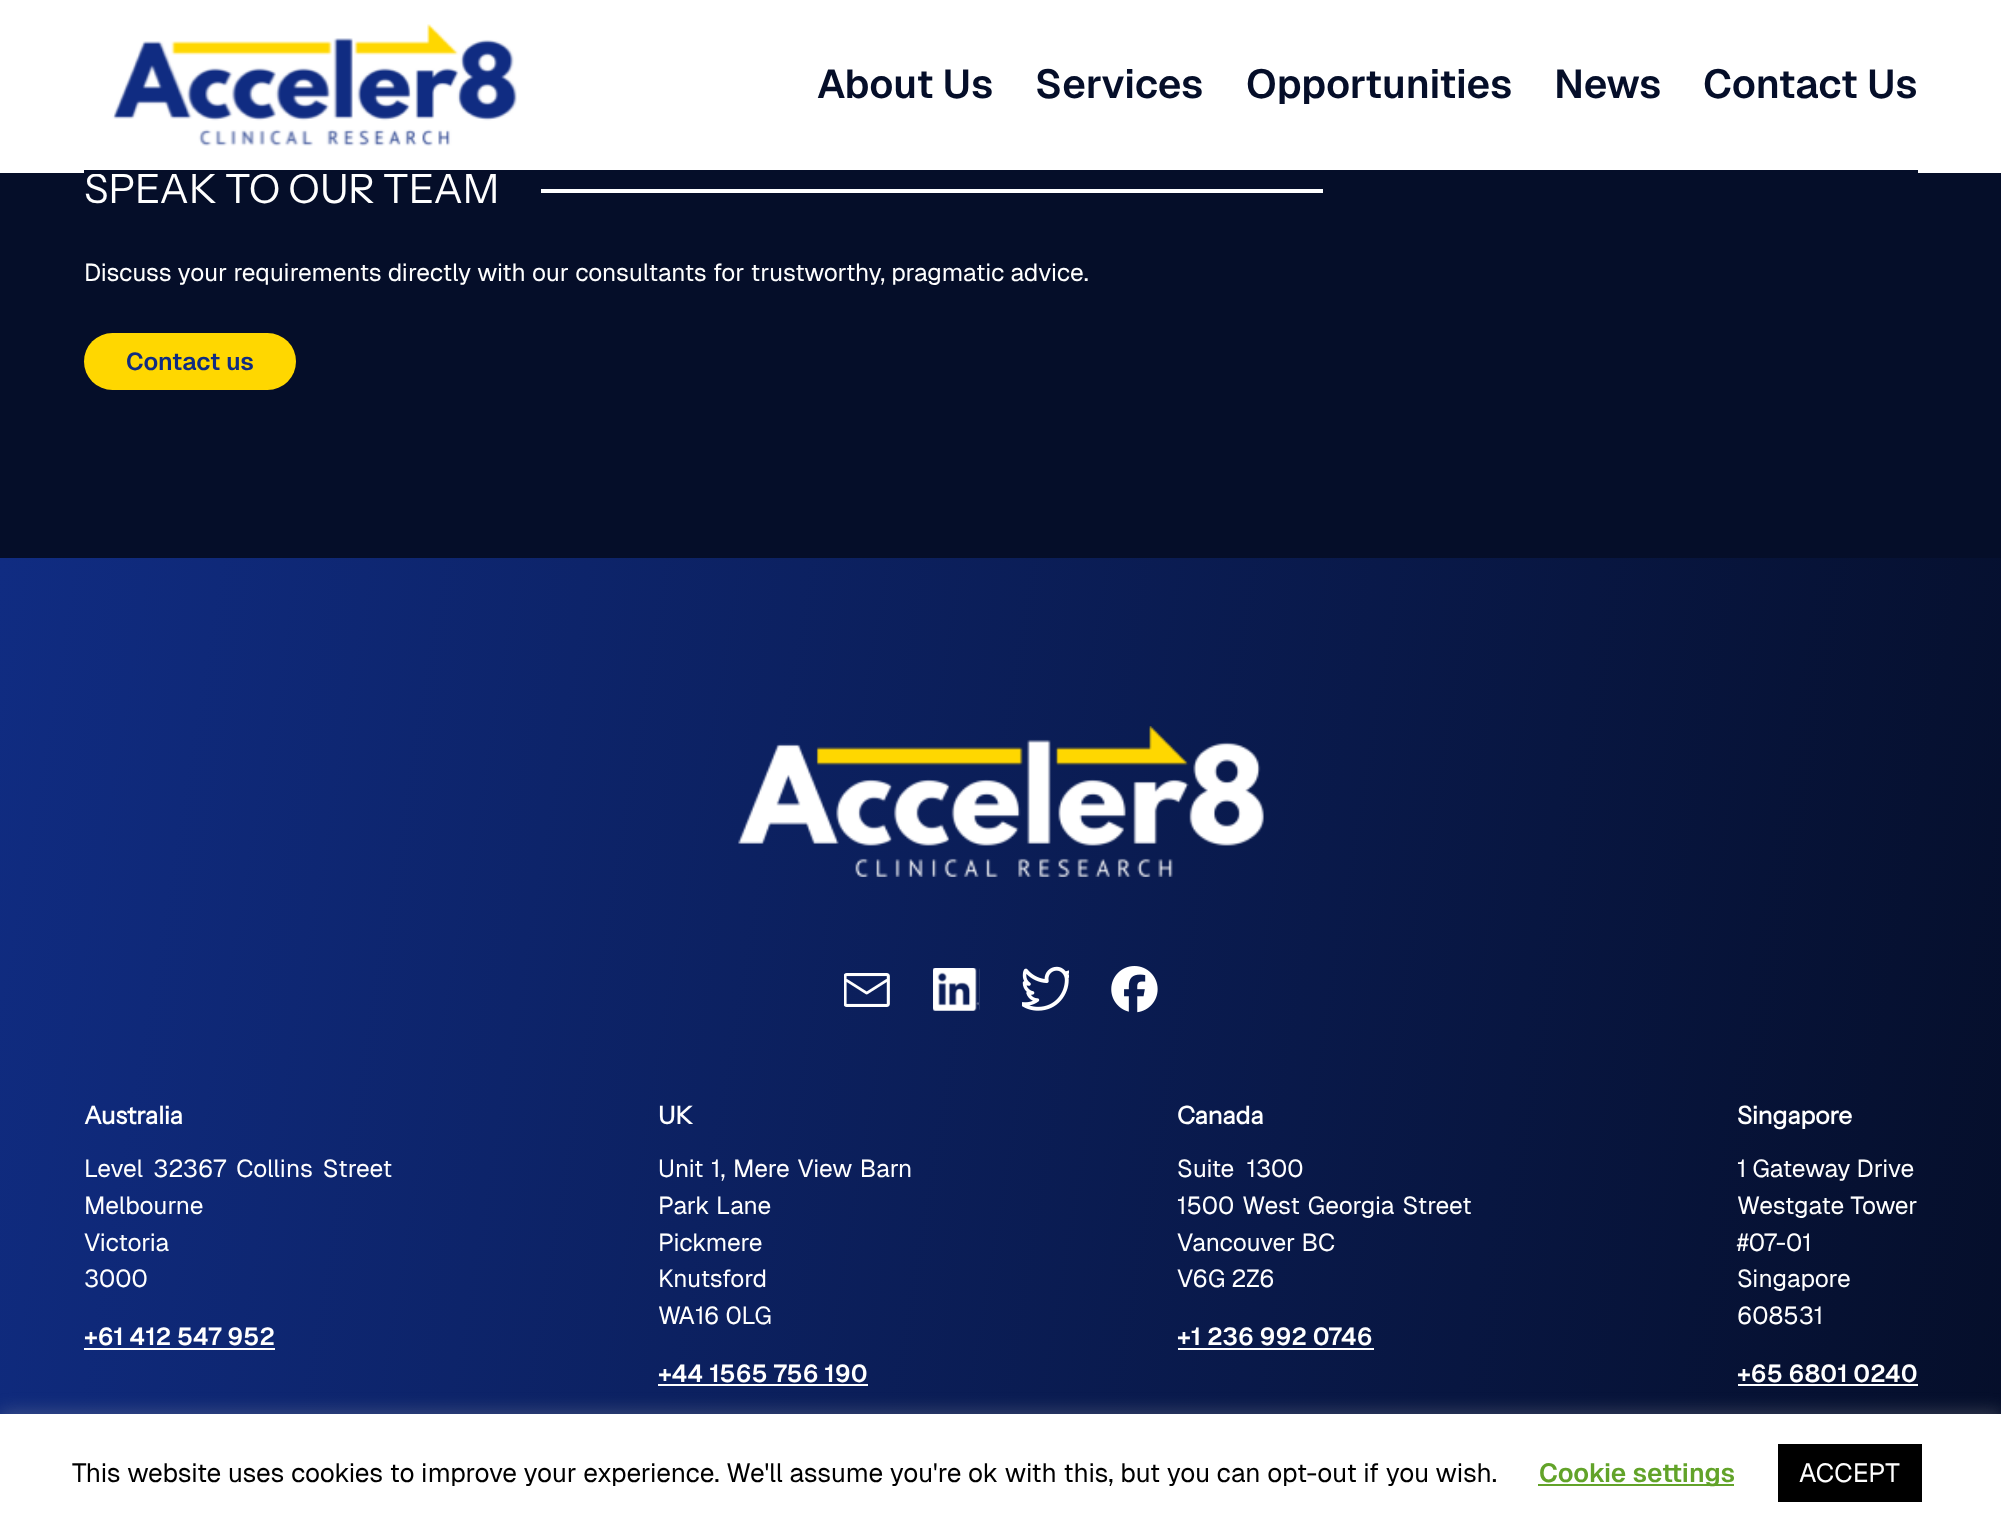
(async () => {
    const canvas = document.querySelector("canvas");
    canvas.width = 2001;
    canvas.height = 1530;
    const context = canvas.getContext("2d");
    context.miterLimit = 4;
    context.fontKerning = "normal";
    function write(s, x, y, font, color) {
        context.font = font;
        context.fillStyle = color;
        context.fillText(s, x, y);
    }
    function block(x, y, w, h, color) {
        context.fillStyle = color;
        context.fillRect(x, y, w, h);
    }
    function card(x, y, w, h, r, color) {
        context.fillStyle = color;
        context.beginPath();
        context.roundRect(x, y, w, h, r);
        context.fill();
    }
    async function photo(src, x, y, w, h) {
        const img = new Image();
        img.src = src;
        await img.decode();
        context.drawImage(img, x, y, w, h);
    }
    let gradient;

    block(0, 0, 2001, 1530, "rgb(5, 14, 41)");
    block(0, 0, 2001, 173, "rgb(255, 255, 255)");
    write("SPEAK TO OUR TEAM", 84, 203, "40.25px Instrument Sans", "rgb(255, 255, 255)");
    block(84, 170, 1834, 4, "rgb(5, 14, 41)");
    await photo("media/1.png", 112, 24, 405, 122);
    write("About Us", 817, 98, "600 40.25px Geist", "rgb(5, 14, 41)");
    write("Services", 1035, 98, "600 40.25px Geist", "rgb(5, 14, 41)");
    write("Opportunities", 1246, 98, "600 40.25px Geist", "rgb(5, 14, 41)");
    write("News", 1554, 98, "600 40.25px Geist", "rgb(5, 14, 41)");
    write("Contact Us", 1703, 98, "600 40.25px Geist", "rgb(5, 14, 41)");
    block(541, 189, 782, 4, "rgb(255, 255, 255)");
    write("Discuss your requirements directly with our consultants for trustworthy, pragmatic advice.", 84, 281, "24.5px Geist", "rgb(255, 255, 255)");
    card(84, 333, 212, 57, 28.5, "rgb(255, 215, 0)");
    write("Contact us", 126, 370, "600 24.5px Geist", "rgb(16, 44, 130)");
    gradient = context.createLinearGradient(-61, 924, 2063, 1279);
    gradient.addColorStop(0, "rgb(16, 44, 130)");
    gradient.addColorStop(1, "rgb(5, 14, 41)");
    context.fillStyle = gradient;
    context.fillRect(0, 558, 2001, 856);
    await photo("media/2.png", 738, 726, 526, 151);
    await photo("media/3.png", 844, 973, 46, 34);
    await photo("media/4.png", 933, 968, 47, 43);
    await photo("media/5.png", 1022, 966, 47, 45);
    await photo("media/6.png", 1111, 966, 47, 47);
    write("Australia", 84, 1124, "bold 24.5px Instrument Sans", "rgb(255, 255, 255)");
    context.wordSpacing = "4px";
    write("Level 32367 Collins Street", 84, 1177, "24.5px Geist", "rgb(255, 255, 255)");
    context.wordSpacing = "0px";
    write("Melbourne", 84, 1214, "24.5px Geist", "rgb(255, 255, 255)");
    write("Victoria", 84, 1251, "24.5px Geist", "rgb(255, 255, 255)");
    write("3000", 84, 1287, "24.5px Geist", "rgb(255, 255, 255)");
    write("+61 412 547 952", 84, 1345, "600 24.5px Geist", "rgb(255, 255, 255)");
    block(84, 1348, 191, 2, "rgb(255, 255, 255)");
    write("UK", 658, 1124, "bold 24.5px Instrument Sans", "rgb(255, 255, 255)");
    context.wordSpacing = "1.5px";
    write("Unit 1, Mere View Barn", 658, 1177, "24.5px Geist", "rgb(255, 255, 255)");
    context.wordSpacing = "0px";
    write("Park Lane", 658, 1214, "24.5px Geist", "rgb(255, 255, 255)");
    write("Pickmere", 658, 1251, "24.5px Geist", "rgb(255, 255, 255)");
    write("Knutsford", 658, 1287, "24.5px Geist", "rgb(255, 255, 255)");
    write("WA16 0LG", 658, 1324, "24.5px Geist", "rgb(255, 255, 255)");
    write("+44 1565 756 190", 658, 1382, "600 24.5px Geist", "rgb(255, 255, 255)");
    block(658, 1384, 210, 2, "rgb(255, 255, 255)");
    write("Canada", 1177, 1124, "bold 24.5px Instrument Sans", "rgb(255, 255, 255)");
    context.wordSpacing = "6px";
    write("Suite 1300", 1177, 1177, "24.5px Geist", "rgb(255, 255, 255)");
    context.wordSpacing = "2px";
    write("1500 West Georgia Street", 1177, 1214, "24.5px Geist", "rgb(255, 255, 255)");
    context.wordSpacing = "0px";
    write("Vancouver BC", 1177, 1251, "24.5px Geist", "rgb(255, 255, 255)");
    write("V6G 2Z6", 1177, 1287, "24.5px Geist", "rgb(255, 255, 255)");
    write("+1 236 992 0746", 1177, 1345, "600 24.5px Geist", "rgb(255, 255, 255)");
    block(1178, 1348, 196, 2, "rgb(255, 255, 255)");
    write("Singapore", 1737, 1124, "bold 24.5px Instrument Sans", "rgb(255, 255, 255)");
    write("1 Gateway Drive", 1737, 1177, "24.5px Geist", "rgb(255, 255, 255)");
    write("Westgate Tower", 1737, 1214, "24.5px Geist", "rgb(255, 255, 255)");
    write("#07-01", 1737, 1251, "24.5px Geist", "rgb(255, 255, 255)");
    write("Singapore", 1737, 1287, "24.5px Geist", "rgb(255, 255, 255)");
    write("608531", 1737, 1324, "24.5px Geist", "rgb(255, 255, 255)");
    write("+65 6801 0240", 1737, 1382, "600 24.5px Geist", "rgb(255, 255, 255)");
    block(1738, 1384, 180, 2, "rgb(255, 255, 255)");
    context.fillStyle = "rgba(172, 171, 171, 0.3)";
    context.filter = "blur(9px)";
    context.beginPath();
    context.rect(0, 1412, 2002, 118);
    context.fill();
    context.filter = "none";
    block(0, 1414, 2001, 116, "rgb(255, 255, 255)");
    write("This website uses cookies to improve your experience. We'll assume you're ok with this, but you can opt-out if you wish.", 72, 1482, "26.25px Geist", "rgb(0, 0, 0)");
    block(1538, 1484, 196, 2, "rgb(98, 163, 41)");
    write("Cookie settings", 1539, 1482, "600 26.25px Geist", "rgb(98, 163, 41)");
    block(1778, 1444, 144, 58, "rgb(0, 0, 0)");
    write("ACCEPT", 1799, 1482, "26.25px Geist", "rgb(255, 255, 255)");
})();
